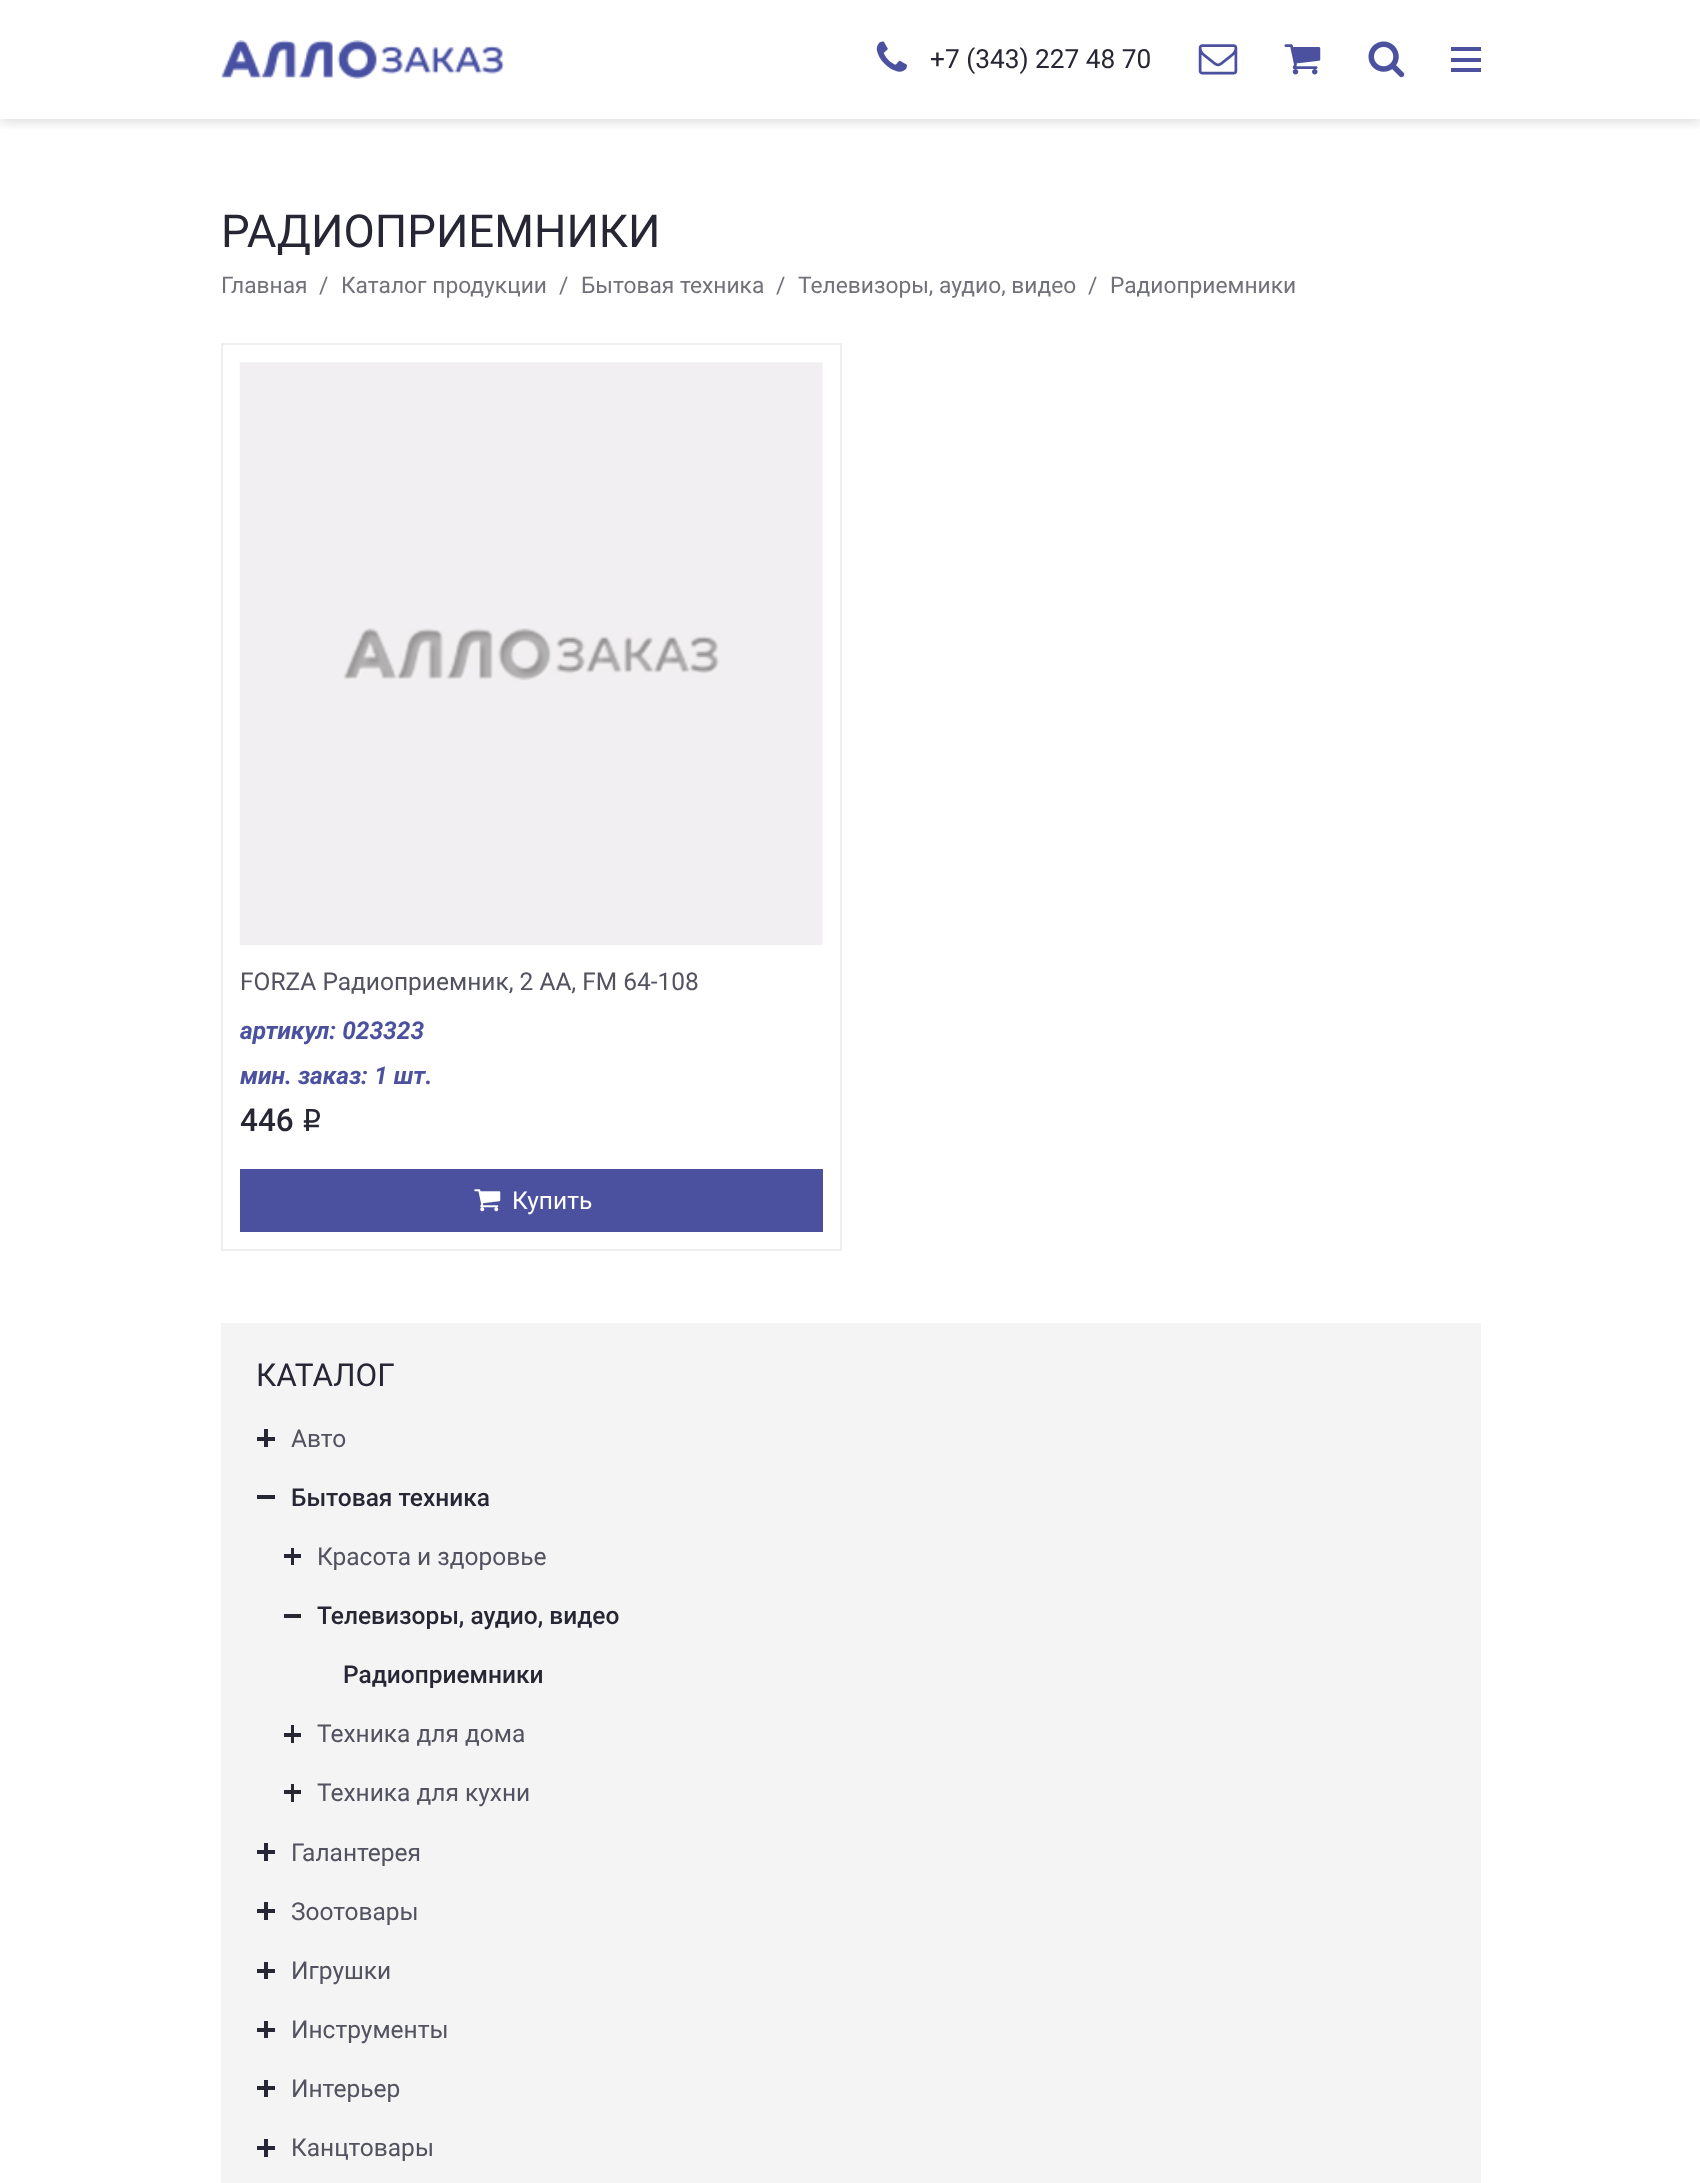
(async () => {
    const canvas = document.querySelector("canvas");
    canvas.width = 1700;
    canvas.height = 2183;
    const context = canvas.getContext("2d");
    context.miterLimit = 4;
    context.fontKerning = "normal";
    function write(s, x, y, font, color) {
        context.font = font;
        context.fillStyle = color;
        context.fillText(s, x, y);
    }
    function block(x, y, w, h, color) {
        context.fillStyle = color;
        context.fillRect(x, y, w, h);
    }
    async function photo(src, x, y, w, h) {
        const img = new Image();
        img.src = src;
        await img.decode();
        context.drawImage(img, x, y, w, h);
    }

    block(0, 0, 1700, 2183, "rgb(255, 255, 255)");
    context.save();
    context.beginPath();
    context.rect(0, 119, 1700, 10);
    context.clip();
    context.fillStyle = "rgba(0, 0, 0, 0.12)";
    context.filter = "blur(6px)";
    context.beginPath();
    context.rect(0, 4, 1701, 119);
    context.fill();
    context.filter = "none";
    context.restore();
    await photo("media/1.png", 221, 40, 283, 39);
    await photo("media/2.png", 876, 41, 31, 31);
    write("+7 (343) 227 48 70", 930, 68, "26.25px Roboto", "rgb(38, 38, 52)");
    await photo("media/3.png", 1198, 44, 40, 31);
    await photo("media/4.png", 1284, 44, 37, 31);
    await photo("media/5.png", 1368, 41, 37, 37);
    block(1451, 47, 30, 4, "rgb(75, 81, 159)");
    block(1451, 58, 30, 4, "rgb(75, 81, 159)");
    block(1451, 68, 30, 4, "rgb(75, 81, 159)");
    write("РАДИОПРИЕМНИКИ", 221, 247, "45.5px Roboto", "rgb(38, 38, 52)");
    write("Главная", 221, 293, "22.75px Roboto", "rgb(113, 113, 121)");
    write("/", 319, 293, "22.75px Roboto", "rgb(113, 113, 121)");
    write("Каталог продукции", 341, 293, "22.75px Roboto", "rgb(113, 113, 121)");
    write("/", 559, 293, "22.75px Roboto", "rgb(113, 113, 121)");
    write("Бытовая техника", 581, 293, "22.75px Roboto", "rgb(113, 113, 121)");
    write("/", 776, 293, "22.75px Roboto", "rgb(113, 113, 121)");
    write("Телевизоры, аудио, видео", 798, 293, "22.75px Roboto", "rgb(113, 113, 121)");
    write("/", 1088, 293, "22.75px Roboto", "rgb(113, 113, 121)");
    write("Радиоприемники", 1110, 293, "22.75px Roboto", "rgb(113, 113, 121)");
    context.strokeStyle = "rgb(238, 238, 238)";
    context.lineWidth = 2;
    context.strokeRect(222, 344, 619, 906);
    await photo("media/6.png", 239, 362, 584, 583);
    write("FORZA Радиоприемник, 2 АА, FM 64-108", 240, 990, "24.5px Roboto", "rgb(82, 82, 96)");
    write("артикул: 023323", 240, 1039, "italic bold 24.5px Roboto", "rgb(75, 81, 159)");
    write("мин. заказ: 1 шт.", 240, 1084, "italic bold 24.5px Roboto", "rgb(75, 81, 159)");
    write("446", 240, 1131, "500 31.5px Roboto", "rgb(38, 38, 52)");
    write("i", 301, 1131, "31.5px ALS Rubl", "rgb(38, 38, 52)");
    block(240, 1169, 583, 63, "rgb(75, 81, 159)");
    await photo("media/7.png", 474, 1189, 27, 23);
    write("Купить", 512, 1209, "24.5px Roboto", "rgb(255, 255, 255)");
    block(221, 1323, 1260, 860, "rgb(244, 244, 244)");
    write("КАТАЛОГ", 256, 1386, "31.5px Roboto", "rgb(38, 38, 52)");
    block(264, 1429, 4, 18, "rgb(38, 38, 52)");
    block(257, 1437, 18, 4, "rgb(38, 38, 52)");
    write("Авто", 291, 1447, "24.5px Roboto", "rgb(82, 82, 96)");
    block(257, 1495, 18, 4, "rgb(38, 38, 52)");
    write("Бытовая техника", 291, 1506, "500 24.5px Roboto", "rgb(38, 38, 52)");
    block(291, 1548, 3, 17, "rgb(38, 38, 52)");
    block(284, 1554, 17, 4, "rgb(38, 38, 52)");
    write("Красота и здоровье", 317, 1565, "24.5px Roboto", "rgb(82, 82, 96)");
    block(284, 1614, 17, 4, "rgb(38, 38, 52)");
    write("Телевизоры, аудио, видео", 317, 1624, "500 24.5px Roboto", "rgb(38, 38, 52)");
    write("Радиоприемники", 343, 1683, "500 24.5px Roboto", "rgb(38, 38, 52)");
    block(291, 1725, 3, 18, "rgb(38, 38, 52)");
    block(284, 1733, 17, 4, "rgb(38, 38, 52)");
    write("Техника для дома", 317, 1742, "24.5px Roboto", "rgb(82, 82, 96)");
    block(291, 1784, 3, 18, "rgb(38, 38, 52)");
    block(284, 1790, 17, 4, "rgb(38, 38, 52)");
    write("Техника для кухни", 317, 1801, "24.5px Roboto", "rgb(82, 82, 96)");
    block(264, 1843, 4, 18, "rgb(38, 38, 52)");
    block(257, 1850, 18, 4, "rgb(38, 38, 52)");
    write("Галантерея", 291, 1861, "24.5px Roboto", "rgb(82, 82, 96)");
    block(264, 1902, 4, 18, "rgb(38, 38, 52)");
    block(257, 1909, 18, 4, "rgb(38, 38, 52)");
    write("Зоотовары", 291, 1920, "24.5px Roboto", "rgb(82, 82, 96)");
    block(264, 1962, 4, 17, "rgb(38, 38, 52)");
    block(257, 1969, 18, 4, "rgb(38, 38, 52)");
    write("Игрушки", 291, 1979, "24.5px Roboto", "rgb(82, 82, 96)");
    block(264, 2021, 4, 17, "rgb(38, 38, 52)");
    block(257, 2028, 18, 4, "rgb(38, 38, 52)");
    write("Инструменты", 291, 2038, "24.5px Roboto", "rgb(82, 82, 96)");
    block(264, 2080, 4, 17, "rgb(38, 38, 52)");
    block(257, 2086, 18, 4, "rgb(38, 38, 52)");
    write("Интерьер", 291, 2097, "24.5px Roboto", "rgb(82, 82, 96)");
    block(264, 2139, 4, 18, "rgb(38, 38, 52)");
    block(257, 2146, 18, 4, "rgb(38, 38, 52)");
    write("Канцтовары", 291, 2156, "24.5px Roboto", "rgb(82, 82, 96)");
})();
